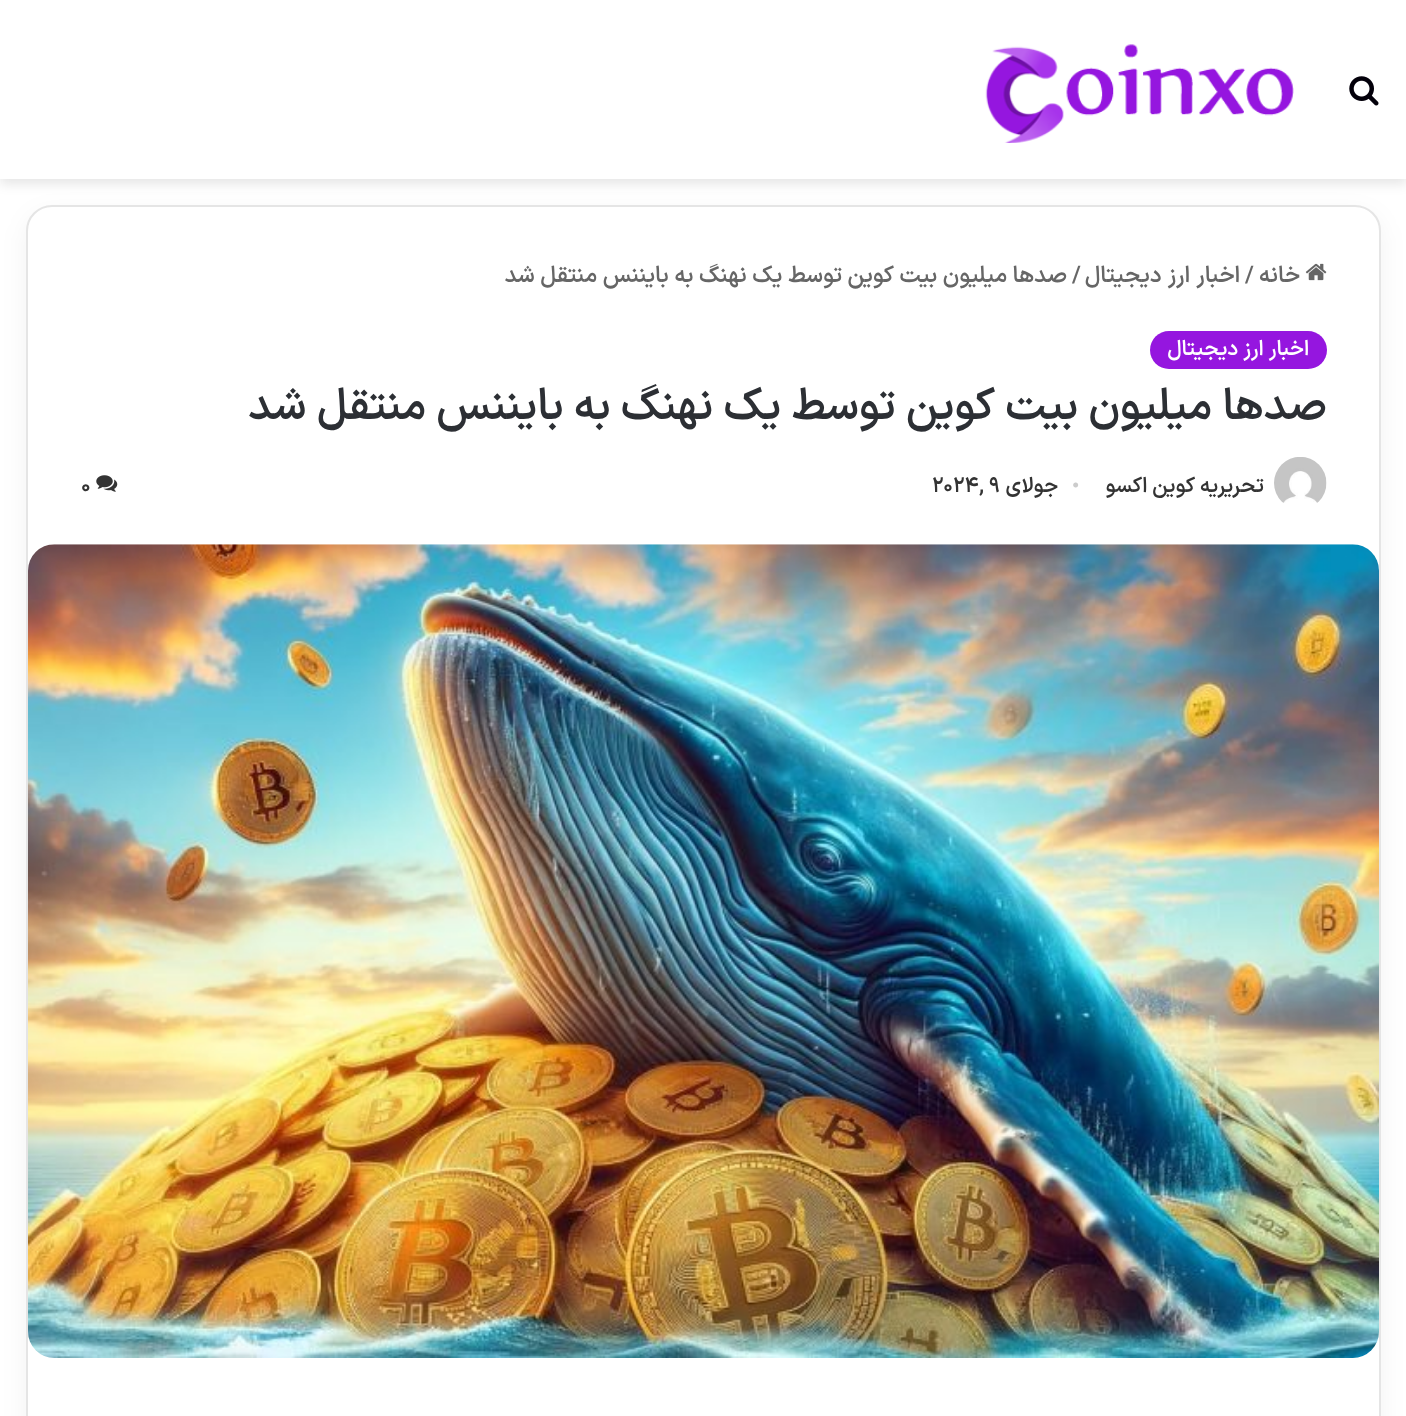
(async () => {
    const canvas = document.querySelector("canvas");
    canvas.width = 1406;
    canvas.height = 1416;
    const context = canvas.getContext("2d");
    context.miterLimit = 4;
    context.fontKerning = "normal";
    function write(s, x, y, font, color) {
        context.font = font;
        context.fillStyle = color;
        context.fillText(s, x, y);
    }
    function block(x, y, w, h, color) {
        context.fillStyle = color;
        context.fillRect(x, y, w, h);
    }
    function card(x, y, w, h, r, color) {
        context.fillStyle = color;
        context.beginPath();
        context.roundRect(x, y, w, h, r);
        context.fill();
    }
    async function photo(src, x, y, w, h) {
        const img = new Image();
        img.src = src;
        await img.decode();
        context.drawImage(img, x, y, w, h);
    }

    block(0, 0, 1406, 1416, "rgb(255, 255, 255)");
    context.fillStyle = "rgba(0, 0, 0, 0.1)";
    context.filter = "blur(6px)";
    context.beginPath();
    context.rect(0, 5, 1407, 179);
    context.fill();
    context.filter = "none";
    context.fillStyle = "rgba(0, 0, 0, 0.05)";
    context.filter = "blur(13px)";
    context.beginPath();
    context.roundRect(26, 214, 1355, 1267, 26);
    context.fill();
    context.filter = "none";
    block(0, 0, 1406, 179, "rgb(255, 255, 255)");
    await photo("media/1.png", 1349, 76, 30, 30);
    await photo("media/2.png", 985, 44, 309, 99);
    context.beginPath();
    context.roundRect(27, 206, 1353, 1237, 25);
    context.fill();
    context.strokeStyle = "rgb(229, 229, 229)";
    context.lineWidth = 2;
    context.stroke();
    await photo("media/3.png", 1305, 263, 22, 18);
    context.letterSpacing = "-0.1px";
    context.direction = "rtl";
    write("خانه", 1300, 282, "600 22.75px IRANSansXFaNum", "rgb(102, 102, 102)");
    context.direction = "ltr";
    write("/", 1245, 282, "600 22.75px IRANSansXFaNum", "rgb(102, 102, 102)");
    context.wordSpacing = "1px";
    context.direction = "rtl";
    write("اخبار ارز دیجیتال", 1240, 282, "600 22.75px IRANSansXFaNum", "rgb(102, 102, 102)");
    context.wordSpacing = "0px";
    context.direction = "ltr";
    write("/", 1072, 282, "600 22.75px IRANSansXFaNum", "rgb(102, 102, 102)");
    context.wordSpacing = "0.25px";
    context.direction = "rtl";
    write("صدها میلیون بیت کوین توسط یک نهنگ به بایننس منتقل شد", 1067, 282, "600 22.75px IRANSansXFaNum", "rgb(102, 102, 102)");
    card(1150, 331, 177, 38, 19, "rgb(149, 22, 223)");
    context.letterSpacing = "0px";
    context.wordSpacing = "0px";
    write("اخبار ارز دیجیتال", 1309, 355, "600 21px IRANSansXFaNum", "rgb(255, 255, 255)");
    context.letterSpacing = "-0.1px";
    context.wordSpacing = "0.1px";
    write("صدها میلیون بیت کوین توسط یک نهنگ به بایننس منتقل شد", 1327, 419, "600 43.75px IRANSansXFaNum", "rgb(44, 47, 52)");
    await photo("media/4.png", 1274, 457, 53, 46);
    context.wordSpacing = "0px";
    write("تحریریه کوین اکسو", 1264, 492, "600 21px IRANSansXFaNum", "rgb(51, 51, 51)");
    context.direction = "ltr";
    write("•", 1072, 492, "21px Liberation Serif", "rgb(204, 204, 204)");
    context.direction = "rtl";
    write("جولای", 1058, 492, "600 21px IRANSansXFaNum", "rgb(51, 51, 51)");
    context.direction = "ltr";
    write(", 9", 979, 492, "600 21px IRANSansXFaNum", "rgb(51, 51, 51)");
    write("2024", 932, 492, "600 21px IRANSansXFaNum", "rgb(51, 51, 51)");
    await photo("media/5.png", 96, 475, 22, 17);
    write("0", 81, 492, "600 21px IRANSansXFaNum", "rgb(51, 51, 51)");
    await photo("media/6.png", 28, 544, 1351, 814);
})();
